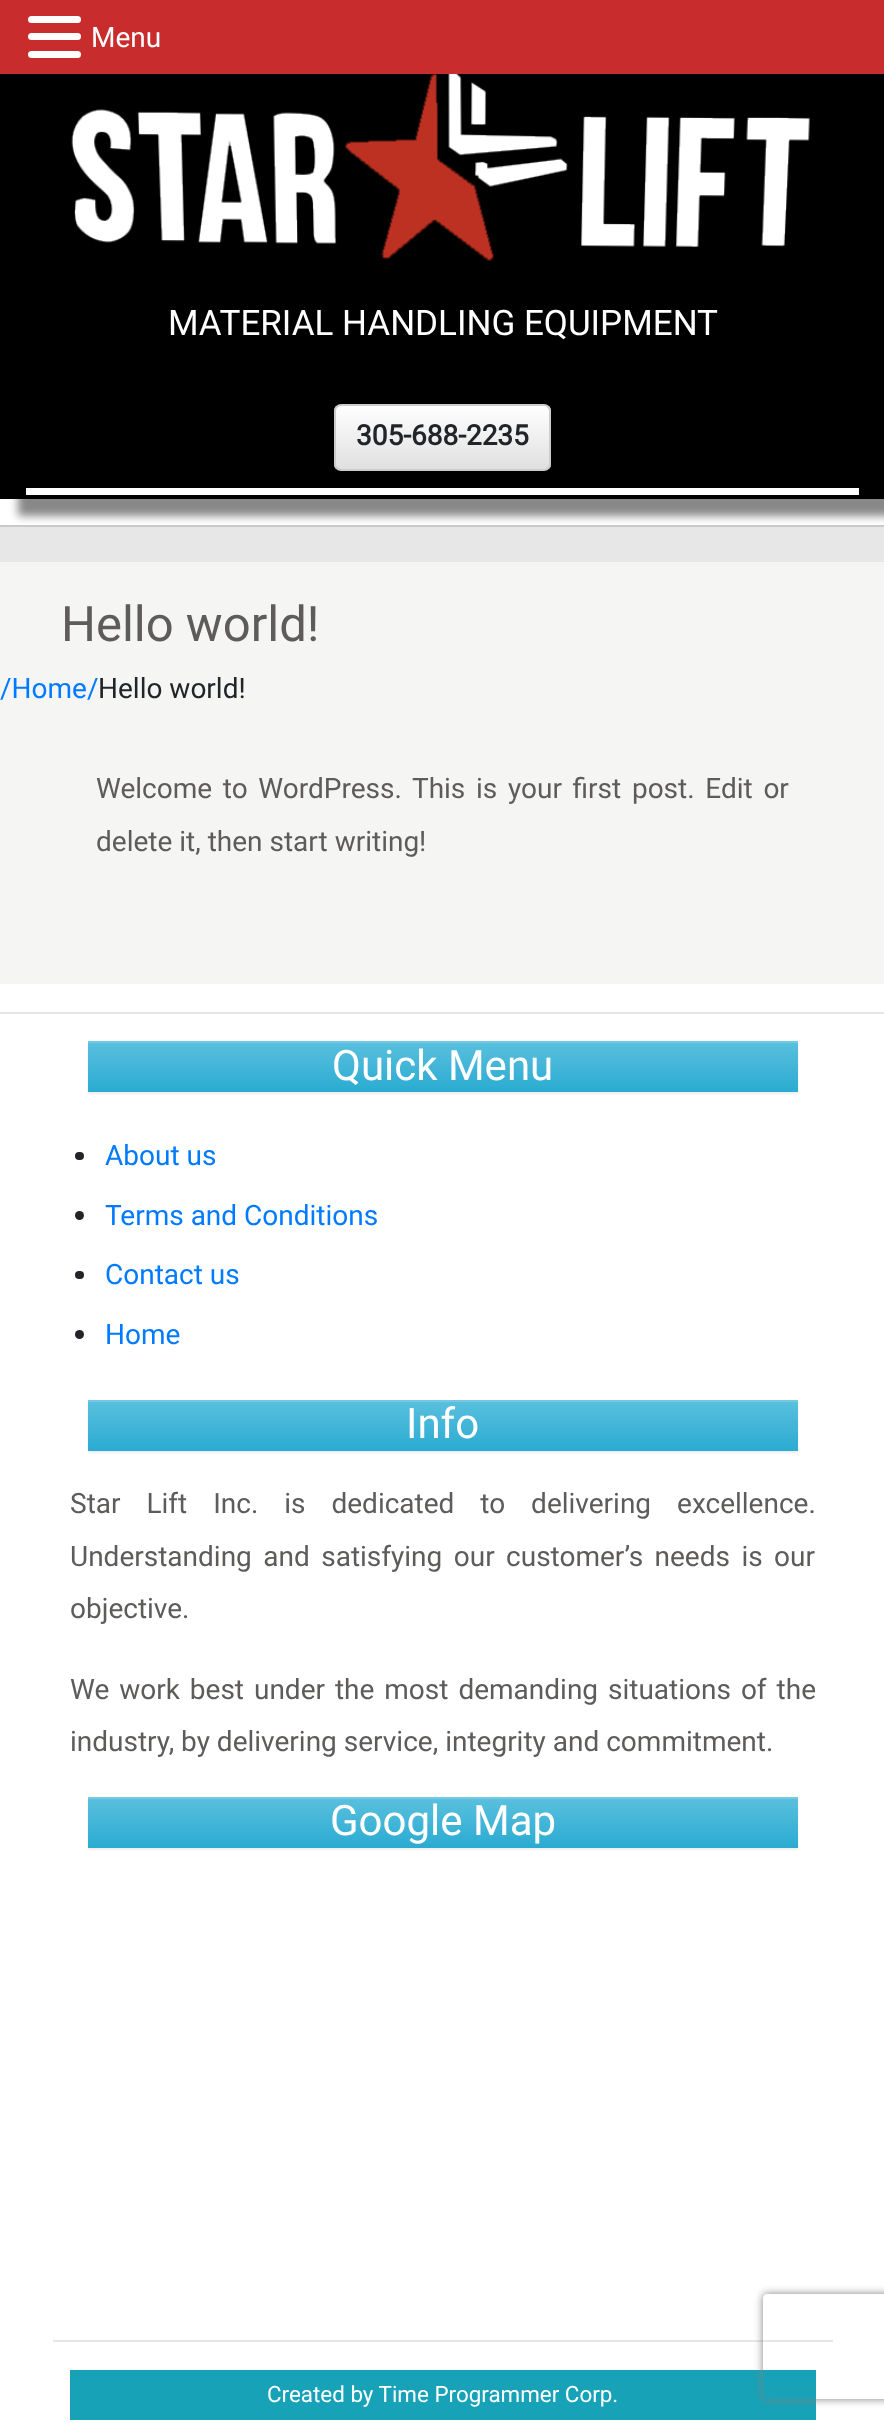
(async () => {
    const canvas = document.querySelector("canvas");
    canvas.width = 884;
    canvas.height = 2423;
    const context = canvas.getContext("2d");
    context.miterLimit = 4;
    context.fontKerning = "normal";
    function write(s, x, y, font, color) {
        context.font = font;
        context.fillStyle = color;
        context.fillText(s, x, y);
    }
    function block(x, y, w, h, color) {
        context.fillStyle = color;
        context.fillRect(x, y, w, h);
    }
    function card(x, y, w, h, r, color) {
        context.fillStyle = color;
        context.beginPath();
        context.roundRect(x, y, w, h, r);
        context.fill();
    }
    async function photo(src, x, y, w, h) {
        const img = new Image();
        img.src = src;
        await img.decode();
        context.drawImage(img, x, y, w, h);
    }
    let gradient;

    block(0, 0, 884, 2423, "rgb(255, 255, 255)");
    context.fillStyle = "rgb(136, 136, 136)";
    context.filter = "blur(4.5px)";
    context.beginPath();
    context.rect(18, 84, 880, 432);
    context.fill();
    context.filter = "none";
    block(0, 0, 884, 74, "rgb(201, 44, 44)");
    card(28, 16, 53, 7, 3.5, "rgb(255, 255, 255)");
    card(28, 33, 53, 7, 3.5, "rgb(255, 255, 255)");
    card(28, 51, 53, 7, 3.5, "rgb(255, 255, 255)");
    write("Menu", 91, 47, "28px Roboto", "rgb(255, 255, 255)");
    block(0, 74, 884, 425, "rgb(0, 0, 0)");
    await photo("media/1.png", 71, 74, 739, 187);
    write("MATERIAL HANDLING EQUIPMENT", 168, 335, "35px Roboto", "rgb(255, 255, 255)");
    context.save();
    context.beginPath();
    context.roundRect(334, 404, 217, 67, 7);
    context.clip();
    gradient = context.createLinearGradient(443, 406, 443, 469);
    gradient.addColorStop(0, "rgb(255, 255, 255)");
    gradient.addColorStop(1, "rgb(224, 224, 224)");
    context.fillStyle = gradient;
    context.fillRect(334, 406, 217, 63);
    context.restore();
    context.beginPath();
    context.roundRect(335, 405, 215, 65, 6);
    context.strokeStyle = "rgb(204, 204, 204)";
    context.lineWidth = 2;
    context.stroke();
    write("305-688-2235", 356, 445, "bold 28px Roboto", "rgb(33, 37, 41)");
    block(26, 488, 833, 7, "rgb(255, 255, 255)");
    block(0, 527, 884, 35, "rgb(231, 231, 231)");
    block(0, 525, 884, 2, "rgb(203, 201, 199)");
    block(0, 562, 884, 422, "rgb(245, 245, 244)");
    write("Hello world!", 61, 641, "49px Roboto", "rgb(94, 92, 90)");
    write("/Home/", 0, 698, "28px Roboto", "rgb(0, 123, 255)");
    write("Hello world!", 98, 698, "28px Roboto", "rgb(33, 37, 41)");
    context.wordSpacing = "3.75px";
    write("Welcome to WordPress. This is your first post. Edit or", 96, 798, "28px Roboto", "rgb(94, 92, 90)");
    context.wordSpacing = "0px";
    write("delete it, then start writing!", 96, 851, "28px Roboto", "rgb(94, 92, 90)");
    block(0, 1012, 884, 2, "rgb(230, 230, 230)");
    context.fillStyle = "rgba(0, 0, 0, 0.07)";
    context.filter = "blur(1px)";
    context.beginPath();
    context.rect(88, 1043, 710, 51);
    context.fill();
    context.filter = "none";
    gradient = context.createLinearGradient(443, 1041, 443, 1092);
    gradient.addColorStop(0, "rgb(91, 192, 222)");
    gradient.addColorStop(1, "rgb(42, 171, 210)");
    context.fillStyle = gradient;
    context.fillRect(88, 1043, 710, 49);
    block(88, 1041, 710, 2, "rgb(115, 201, 227)");
    write("Quick Menu", 332, 1080, "42px Roboto", "rgb(255, 255, 255)");
    card(75, 1152, 9, 8, 4, "rgb(33, 37, 41)");
    write("About us", 105, 1165, "28px Roboto", "rgb(0, 123, 255)");
    context.fillStyle = "rgb(33, 37, 41)";
    context.beginPath();
    context.arc(79.5, 1215.5, 4.5, 0, Math.PI * 2);
    context.fill();
    write("Terms and Conditions", 105, 1225, "28px Roboto", "rgb(0, 123, 255)");
    card(75, 1271, 9, 8, 4, "rgb(33, 37, 41)");
    write("Contact us", 105, 1284, "28px Roboto", "rgb(0, 123, 255)");
    context.fillStyle = "rgb(33, 37, 41)";
    context.beginPath();
    context.arc(79.5, 1334.5, 4.5, 0, Math.PI * 2);
    context.fill();
    write("Home", 105, 1344, "28px Roboto", "rgb(0, 123, 255)");
    context.fillStyle = "rgba(0, 0, 0, 0.07)";
    context.filter = "blur(1px)";
    context.beginPath();
    context.rect(88, 1402, 710, 51);
    context.fill();
    context.filter = "none";
    gradient = context.createLinearGradient(443, 1400, 443, 1451);
    gradient.addColorStop(0, "rgb(91, 192, 222)");
    gradient.addColorStop(1, "rgb(42, 171, 210)");
    context.fillStyle = gradient;
    context.fillRect(88, 1402, 710, 49);
    block(88, 1400, 710, 2, "rgb(115, 201, 227)");
    write("Info", 406, 1438, "42px Roboto", "rgb(255, 255, 255)");
    context.wordSpacing = "19px";
    write("Star Lift Inc. is dedicated to delivering excellence.", 70, 1513, "28px Roboto", "rgb(94, 92, 90)");
    context.wordSpacing = "4.5px";
    write("Understanding and satisfying our customer’s needs is our", 70, 1566, "28px Roboto", "rgb(94, 92, 90)");
    context.wordSpacing = "0px";
    write("objective.", 70, 1618, "28px Roboto", "rgb(94, 92, 90)");
    context.wordSpacing = "3px";
    write("We work best under the most demanding situations of the", 70, 1699, "28px Roboto", "rgb(94, 92, 90)");
    context.wordSpacing = "0px";
    write("industry, by delivering service, integrity and commitment.", 70, 1751, "28px Roboto", "rgb(94, 92, 90)");
    context.fillStyle = "rgba(0, 0, 0, 0.07)";
    context.filter = "blur(1px)";
    context.beginPath();
    context.rect(88, 1799, 710, 51);
    context.fill();
    context.filter = "none";
    gradient = context.createLinearGradient(443, 1797, 443, 1848);
    gradient.addColorStop(0, "rgb(91, 192, 222)");
    gradient.addColorStop(1, "rgb(42, 171, 210)");
    context.fillStyle = gradient;
    context.fillRect(88, 1799, 710, 49);
    block(88, 1797, 710, 2, "rgb(115, 201, 227)");
    write("Google Map", 330, 1835, "42px Roboto", "rgb(255, 255, 255)");
    block(53, 2340, 780, 2, "rgb(230, 230, 230)");
    block(70, 2370, 746, 50, "rgb(23, 162, 184)");
    write("Created by Time Programmer Corp.", 267, 2402, "22.4px Roboto", "rgb(255, 255, 255)");
    context.save();
    context.beginPath();
    context.moveTo(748, 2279);
    context.lineTo(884, 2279);
    context.lineTo(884, 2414);
    context.lineTo(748, 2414);
    context.closePath();
    context.moveTo(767, 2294);
    context.lineTo(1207, 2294);
    context.bezierCurveTo(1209, 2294, 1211, 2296, 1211, 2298);
    context.lineTo(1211, 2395);
    context.bezierCurveTo(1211, 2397, 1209, 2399, 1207, 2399);
    context.lineTo(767, 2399);
    context.bezierCurveTo(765, 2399, 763, 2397, 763, 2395);
    context.lineTo(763, 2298);
    context.bezierCurveTo(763, 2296, 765, 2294, 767, 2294);
    context.closePath();
    context.clip("evenodd");
    context.fillStyle = "rgb(128, 128, 128)";
    context.filter = "blur(4.5px)";
    context.beginPath();
    context.roundRect(763, 2294, 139, 105, 4);
    context.fill();
    context.filter = "none";
    context.restore();
})();
